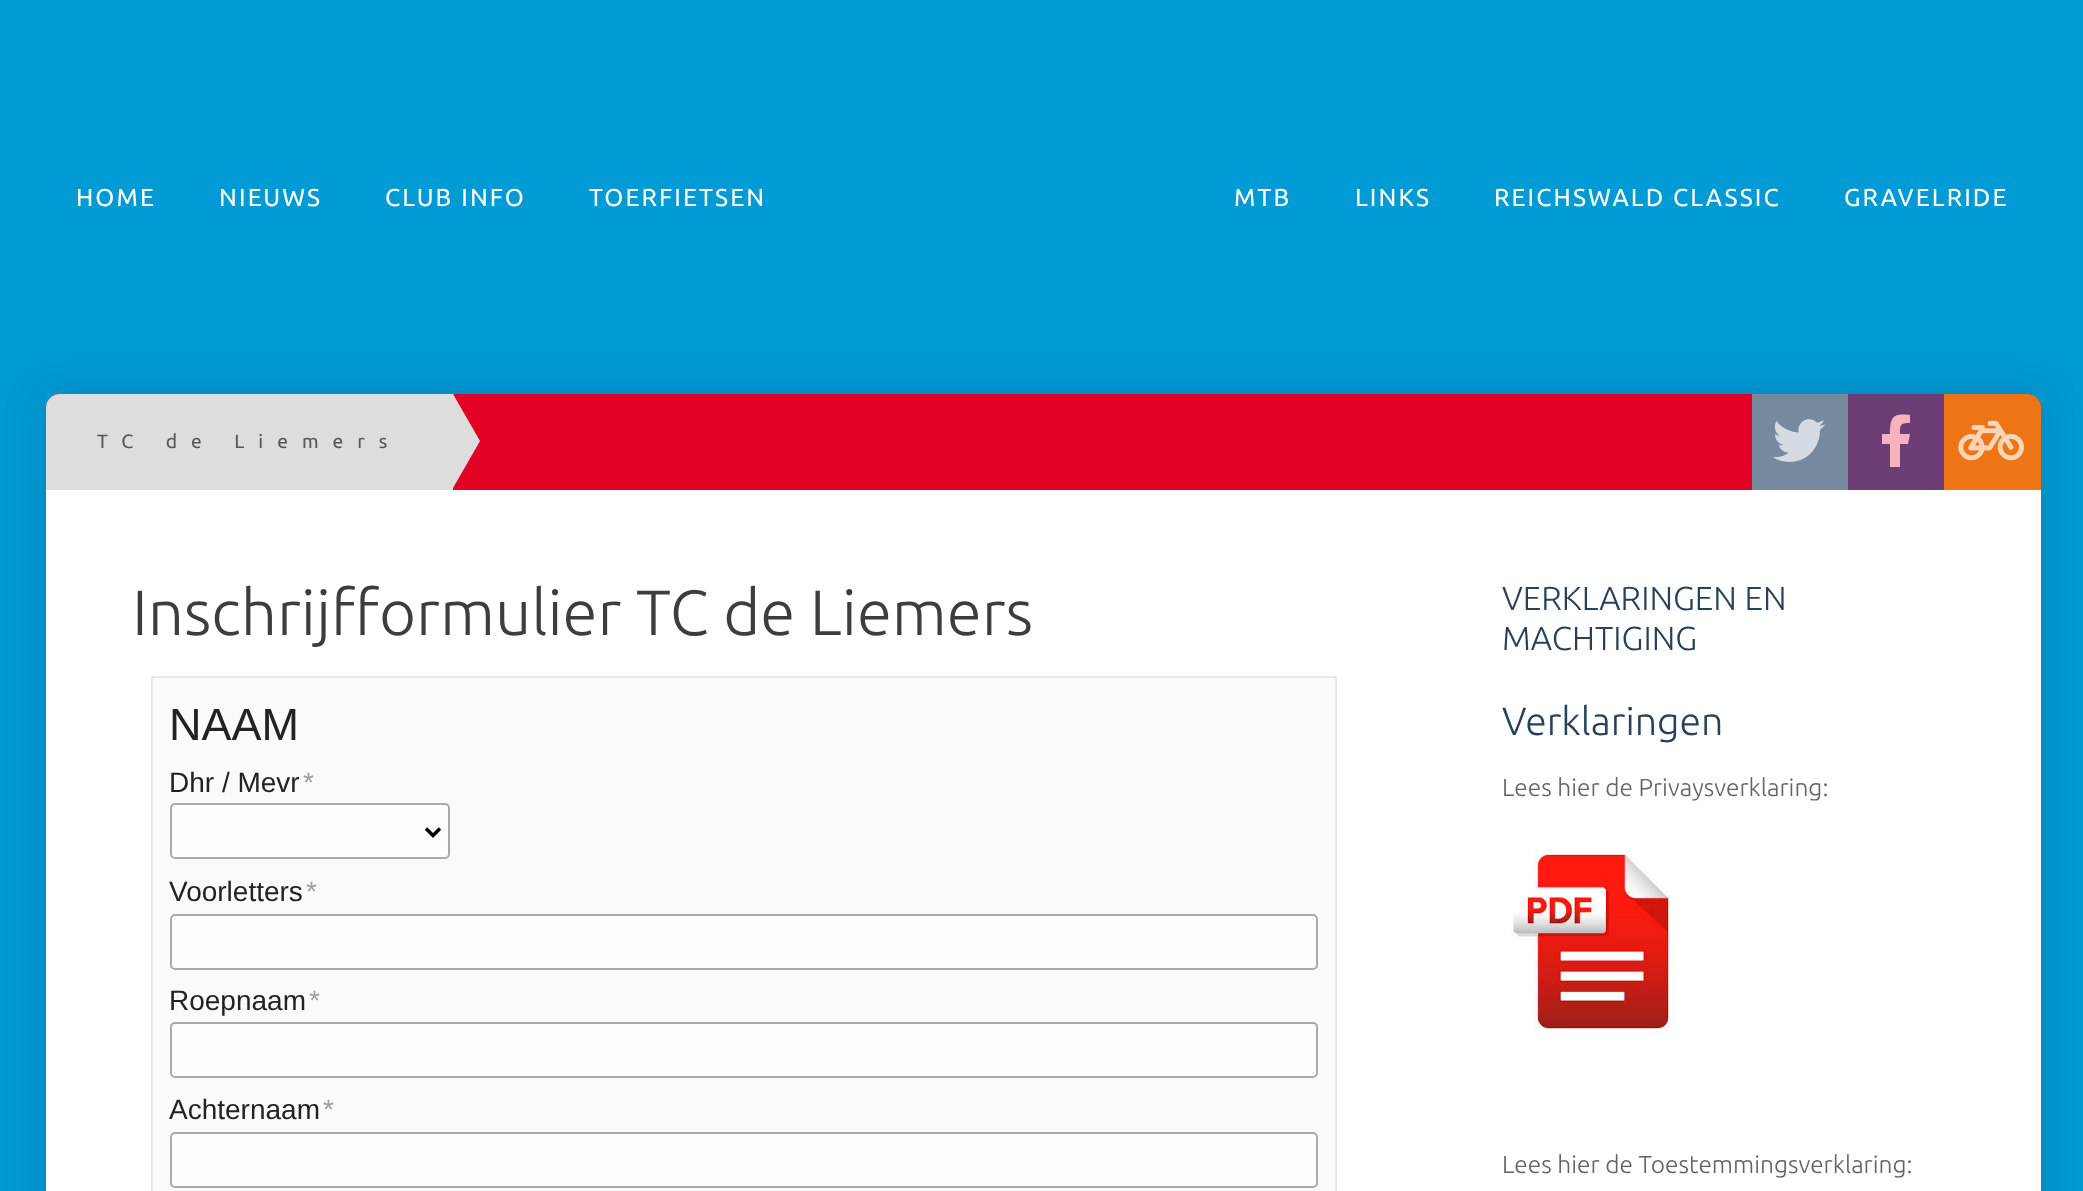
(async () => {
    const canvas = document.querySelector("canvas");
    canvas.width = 2083;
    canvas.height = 1191;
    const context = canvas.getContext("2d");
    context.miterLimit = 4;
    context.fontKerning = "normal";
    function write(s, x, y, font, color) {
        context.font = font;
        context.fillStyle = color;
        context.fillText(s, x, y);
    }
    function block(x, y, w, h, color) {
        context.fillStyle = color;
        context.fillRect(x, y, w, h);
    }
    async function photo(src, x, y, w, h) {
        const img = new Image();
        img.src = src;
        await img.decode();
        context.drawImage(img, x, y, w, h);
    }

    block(0, 0, 2083, 1191, "rgb(0, 154, 213)");
    context.letterSpacing = "2.1px";
    write("HOME", 76, 206, "24.5px Ubuntu", "rgb(255, 255, 255)");
    write("NIEUWS", 219, 206, "24.5px Ubuntu", "rgb(255, 255, 255)");
    write("CLUB INFO", 385, 206, "24.5px Ubuntu", "rgb(255, 255, 255)");
    write("TOERFIETSEN", 589, 206, "24.5px Ubuntu", "rgb(255, 255, 255)");
    write("MTB", 1234, 206, "24.5px Ubuntu", "rgb(255, 255, 255)");
    write("LINKS", 1355, 206, "24.5px Ubuntu", "rgb(255, 255, 255)");
    write("REICHSWALD CLASSIC", 1494, 206, "24.5px Ubuntu", "rgb(255, 255, 255)");
    write("GRAVELRIDE", 1844, 206, "24.5px Ubuntu", "rgb(255, 255, 255)");
    context.save();
    context.beginPath();
    context.moveTo(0, 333);
    context.lineTo(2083, 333);
    context.lineTo(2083, 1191);
    context.lineTo(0, 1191);
    context.closePath();
    context.moveTo(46, 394);
    context.lineTo(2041, 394);
    context.lineTo(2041, 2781);
    context.bezierCurveTo(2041, 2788.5, 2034.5, 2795, 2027, 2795);
    context.lineTo(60, 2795);
    context.bezierCurveTo(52.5, 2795, 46, 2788.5, 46, 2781);
    context.closePath();
    context.clip("evenodd");
    context.fillStyle = "rgba(0, 0, 0, 0.1)";
    context.filter = "blur(17.5px)";
    context.beginPath();
    context.roundRect(39, 387, 2009, 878, 21);
    context.fill();
    context.filter = "none";
    context.restore();
    context.fillStyle = "rgb(226, 0, 37)";
    context.beginPath();
    context.roundRect(46, 394, 1995, 96, [14, 14, 0, 0]);
    context.fill();
    context.fillStyle = "rgb(221, 221, 221)";
    context.beginPath();
    context.roundRect(46, 394, 407, 96, [14, 0, 0, 0]);
    context.fill();
    context.letterSpacing = "14px";
    write("TC de Liemers", 97, 448, "19.25px Ubuntu", "rgb(87, 87, 87)");
    context.fillStyle = "rgb(221, 221, 221)";
    context.beginPath();
    context.moveTo(453, 488);
    context.lineTo(453, 394);
    context.lineTo(480, 441);
    context.closePath();
    context.fill();
    block(1752, 394, 96, 96, "rgb(118, 137, 158)");
    await photo("media/1.png", 1773, 419, 52, 43);
    block(1848, 394, 96, 96, "rgb(109, 62, 118)");
    context.fillStyle = "rgb(246, 179, 190)";
    context.beginPath();
    context.moveTo(1908, 444);
    context.lineTo(1900, 444);
    context.lineTo(1900, 467);
    context.lineTo(1890, 467);
    context.lineTo(1890, 444);
    context.lineTo(1882, 444);
    context.lineTo(1882, 434);
    context.lineTo(1890, 434);
    context.bezierCurveTo(1890, 417, 1893, 413, 1910, 415);
    context.lineTo(1910, 423);
    context.bezierCurveTo(1900, 423, 1900, 425, 1900, 434);
    context.lineTo(1910, 434);
    context.closePath();
    context.fill();
    context.fillStyle = "rgba(242, 166, 14, 0.7)";
    context.beginPath();
    context.roundRect(1944, 394, 97, 96, [0, 14, 0, 0]);
    context.fill();
    await photo("media/2.png", 1958, 420, 66, 41);
    block(46, 490, 1995, 701, "rgb(255, 255, 255)");
    context.letterSpacing = "0px";
    write("Inschrijfformulier TC de Liemers", 132, 635, "300 63.75px Ubuntu", "rgb(61, 61, 61)");
    context.fillStyle = "rgb(250, 250, 250)";
    context.beginPath();
    context.rect(152, 677, 1184, 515);
    context.fill();
    context.strokeStyle = "rgb(232, 232, 232)";
    context.lineWidth = 2;
    context.stroke();
    write("NAAM", 169, 740, "45px Liberation Sans", "rgb(35, 34, 34)");
    write("Dhr / Mevr", 169, 792, "28px Liberation Sans", "rgb(35, 34, 34)");
    write("*", 303, 792, "28px Liberation Sans", "rgb(158, 158, 158)");
    context.fillStyle = "rgb(254, 254, 254)";
    context.beginPath();
    context.roundRect(171, 804, 278, 54, 4);
    context.fill();
    context.strokeStyle = "rgb(171, 170, 170)";
    context.stroke();
    context.beginPath();
    context.moveTo(426, 828.5);
    context.lineTo(433, 835.5);
    context.lineTo(440, 828.5);
    context.strokeStyle = "rgb(0, 0, 0)";
    context.lineWidth = 3.5;
    context.stroke();
    write("Voorletters", 169, 901, "28px Liberation Sans", "rgb(35, 34, 34)");
    write("*", 306, 901, "28px Liberation Sans", "rgb(158, 158, 158)");
    context.fillStyle = "rgb(254, 254, 254)";
    context.beginPath();
    context.roundRect(171, 915, 1146, 54, 4);
    context.fill();
    context.strokeStyle = "rgb(171, 170, 170)";
    context.lineWidth = 2;
    context.stroke();
    write("Roepnaam", 169, 1010, "28px Liberation Sans", "rgb(35, 34, 34)");
    write("*", 309, 1010, "28px Liberation Sans", "rgb(158, 158, 158)");
    context.fillStyle = "rgb(254, 254, 254)";
    context.beginPath();
    context.roundRect(171, 1023, 1146, 54, 4);
    context.fill();
    context.stroke();
    write("Achternaam", 169, 1119, "28px Liberation Sans", "rgb(35, 34, 34)");
    write("*", 323, 1119, "28px Liberation Sans", "rgb(158, 158, 158)");
    context.fillStyle = "rgb(254, 254, 254)";
    context.beginPath();
    context.roundRect(171, 1133, 1146, 54, 4);
    context.fill();
    context.stroke();
    write("VERKLARINGEN EN", 1502, 610, "300 33.25px Ubuntu", "rgb(38, 65, 92)");
    write("MACHTIGING", 1502, 650, "300 33.25px Ubuntu", "rgb(38, 65, 92)");
    write("Verklaringen", 1502, 735, "300 39.25px Ubuntu", "rgb(38, 65, 92)");
    write("Lees hier de Privaysverklaring:", 1502, 796, "300 24.5px Ubuntu", "rgb(99, 99, 99)");
    await photo("media/3.png", 1511, 854, 160, 175);
    write("Lees hier de Toestemmingsverklaring:", 1502, 1173, "300 24.5px Ubuntu", "rgb(99, 99, 99)");
})();
